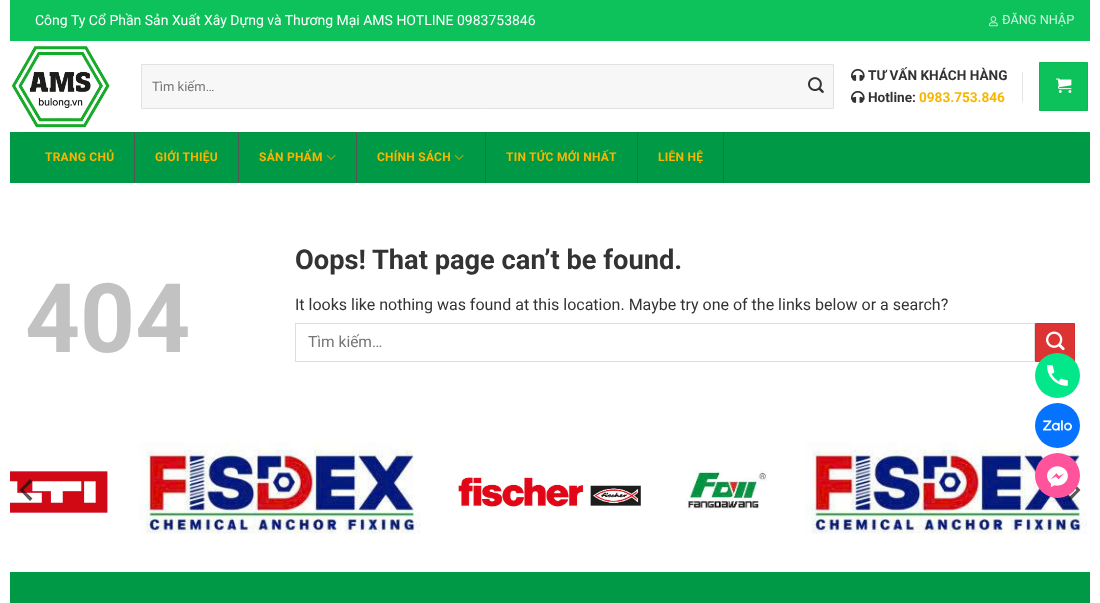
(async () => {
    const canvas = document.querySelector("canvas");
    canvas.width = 1100;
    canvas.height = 603;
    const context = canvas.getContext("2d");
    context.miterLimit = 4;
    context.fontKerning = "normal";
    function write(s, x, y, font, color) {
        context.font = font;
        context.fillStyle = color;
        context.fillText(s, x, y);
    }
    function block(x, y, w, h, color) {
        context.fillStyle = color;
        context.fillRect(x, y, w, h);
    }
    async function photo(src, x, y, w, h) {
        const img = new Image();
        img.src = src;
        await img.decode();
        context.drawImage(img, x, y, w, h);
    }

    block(0, 0, 1100, 603, "rgb(255, 255, 255)");
    block(10, 0, 1080, 41, "rgb(13, 193, 91)");
    write("Công Ty Cổ Phần Sản Xuất Xây Dựng và Thương Mại AMS HOTLINE 0983753846", 35, 25, "14px Roboto", "rgb(255, 255, 255)");
    await photo("media/1.png", 989, 16, 9, 11);
    write("ĐĂNG NHẬP", 1002, 24, "12.75px Roboto", "rgb(207, 243, 222)");
    await photo("media/2.png", 11, 46, 99, 82);
    context.fillStyle = "rgb(247, 247, 247)";
    context.beginPath();
    context.rect(141.5, 64.5, 692, 44);
    context.fill();
    context.strokeStyle = "rgb(225, 225, 225)";
    context.stroke();
    write("Tìm kiếm…", 152, 91, "13px Roboto", "rgb(117, 117, 117)");
    await photo("media/3.png", 808, 77, 16, 16);
    await photo("media/4.png", 851, 68, 14, 13);
    write("TƯ VẤN KHÁCH HÀNG", 868, 80, "bold 13.6px Roboto", "rgb(51, 51, 51)");
    await photo("media/4.png", 851, 90, 14, 13);
    write("Hotline:", 868, 102, "bold 13.6px Roboto", "rgb(51, 51, 51)");
    write("0983.753.846", 919, 102, "bold 13.6px Roboto", "rgb(249, 182, 0)");
    block(1022, 72, 1, 30, "rgb(230, 230, 230)");
    context.fillStyle = "rgb(13, 193, 91)";
    context.beginPath();
    context.rect(1039.5, 62.5, 48, 48);
    context.fill();
    context.strokeStyle = "rgb(12, 183, 86)";
    context.stroke();
    await photo("media/5.png", 1056, 78, 16, 15);
    block(10, 132, 1080, 51, "rgb(0, 153, 69)");
    block(25, 132, 1050, 1, "rgb(5, 143, 67)");
    block(134, 132, 1, 51, "rgb(85, 85, 85)");
    block(134, 132, 1, 1, "rgb(82, 82, 82)");
    context.letterSpacing = "0.25px";
    write("TRANG CHỦ", 45, 161, "bold 12px Roboto", "rgb(249, 182, 0)");
    block(238, 132, 1, 51, "rgb(85, 85, 85)");
    block(238, 132, 1, 1, "rgb(82, 82, 82)");
    write("GIỚI THIỆU", 155, 161, "bold 12px Roboto", "rgb(249, 182, 0)");
    block(356, 132, 1, 51, "rgb(85, 85, 85)");
    block(356, 132, 1, 1, "rgb(82, 82, 82)");
    write("SẢN PHẨM", 259, 161, "bold 12px Roboto", "rgb(249, 182, 0)");
    await photo("media/6.png", 326, 154, 10, 6);
    block(485, 132, 1, 51, "rgb(85, 85, 85)");
    block(485, 132, 1, 1, "rgb(82, 82, 82)");
    write("CHÍNH SÁCH", 377, 161, "bold 12px Roboto", "rgb(249, 182, 0)");
    await photo("media/6.png", 454, 154, 10, 6);
    block(637, 132, 1, 51, "rgb(85, 85, 85)");
    block(637, 132, 1, 1, "rgb(82, 82, 82)");
    write("TIN TỨC MỚI NHẤT", 506, 161, "bold 12px Roboto", "rgb(249, 182, 0)");
    block(723, 132, 1, 51, "rgb(85, 85, 85)");
    block(723, 132, 1, 1, "rgb(82, 82, 82)");
    write("LIÊN HỆ", 658, 161, "bold 12px Roboto", "rgb(249, 182, 0)");
    context.letterSpacing = "0px";
    write("404", 25, 352, "bold 96px Roboto", "rgb(194, 194, 194)");
    write("Oops! That page can’t be found.", 295, 269, "bold 27.25px Roboto", "rgb(51, 51, 51)");
    write("It looks like nothing was found at this location. Maybe try one of the links below or a search?", 295, 310, "16px Roboto", "rgb(51, 51, 51)");
    context.strokeStyle = "rgb(221, 221, 221)";
    context.strokeRect(295.5, 323.5, 739, 38);
    write("Tìm kiếm…", 308, 347, "15.5px Roboto", "rgb(117, 117, 117)");
    context.fillStyle = "rgb(221, 51, 51)";
    context.beginPath();
    context.rect(1035.5, 323.5, 39, 38);
    context.fill();
    context.strokeStyle = "rgb(210, 48, 48)";
    context.stroke();
    await photo("media/7.png", 1046, 331, 19, 20);
    await photo("media/8.png", 10, 471, 98, 42);
    await photo("media/9.png", 139, 442, 282, 92);
    await photo("media/10.png", 457, 477, 184, 31);
    await photo("media/11.png", 686, 470, 82, 40);
    await photo("media/9.png", 805, 442, 282, 92);
    context.fillStyle = "rgba(17, 17, 17, 0.7)";
    context.beginPath();
    context.moveTo(19.5, 490);
    context.lineTo(30, 501);
    context.lineTo(32.5, 498.5);
    context.lineTo(23.5, 490);
    context.lineTo(32.5, 481.5);
    context.lineTo(30, 479);
    context.closePath();
    context.fill();
    context.beginPath();
    context.moveTo(1080.5, 490);
    context.lineTo(1070, 479);
    context.lineTo(1067.5, 481.5);
    context.lineTo(1076.5, 490);
    context.lineTo(1067.5, 498.5);
    context.lineTo(1070, 501);
    context.closePath();
    context.fill();
    block(10, 572, 1080, 31, "rgb(0, 153, 69)");
    context.fillStyle = "rgb(3, 231, 139)";
    context.beginPath();
    context.arc(1057.5, 375.5, 22.5, 0, Math.PI * 2);
    context.fill();
    await photo("media/12.png", 1047, 365, 21, 21);
    context.fillStyle = "rgb(5, 115, 255)";
    context.beginPath();
    context.arc(1057.5, 425.5, 22.5, 0, Math.PI * 2);
    context.fill();
    await photo("media/13.png", 1043, 420, 29, 11);
    context.fillStyle = "rgb(255, 84, 156)";
    context.beginPath();
    context.arc(1057.5, 475.5, 22.5, 0, Math.PI * 2);
    context.fill();
    await photo("media/14.png", 1047, 466, 21, 21);
})();
